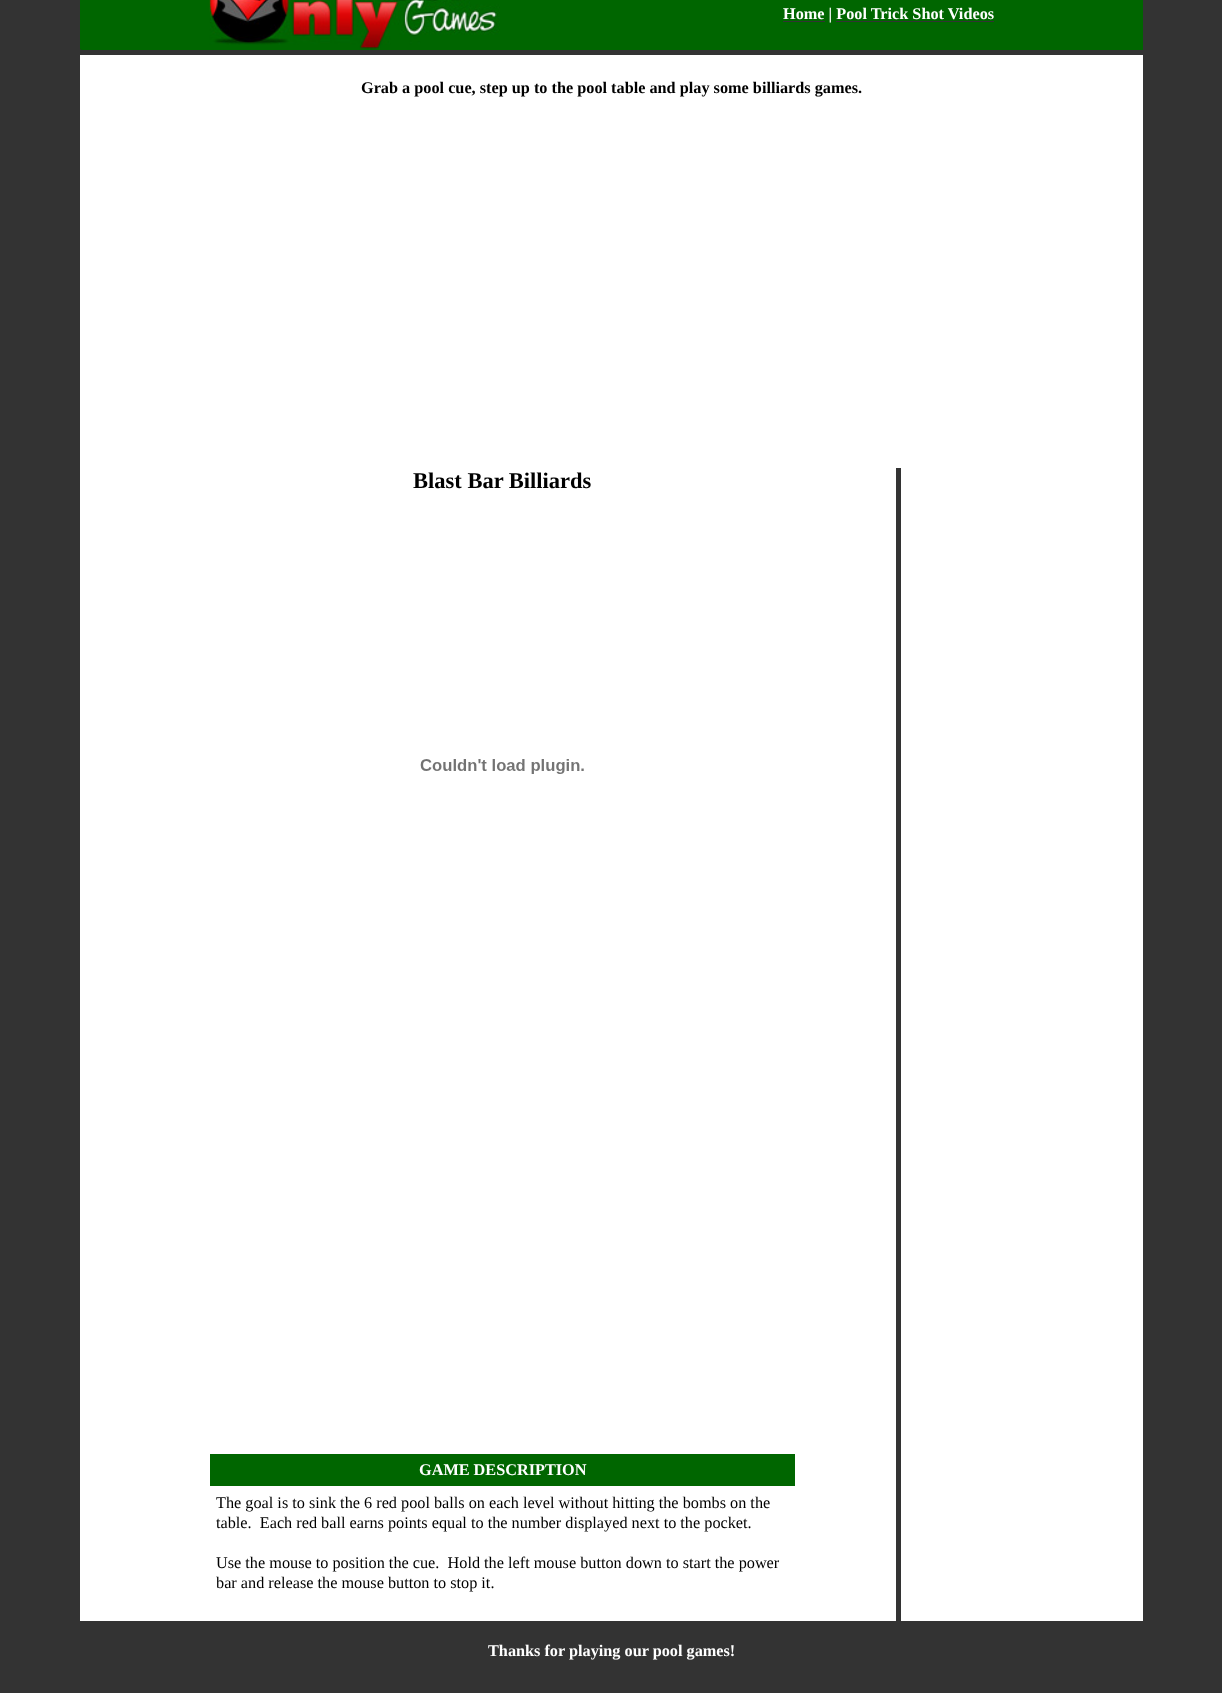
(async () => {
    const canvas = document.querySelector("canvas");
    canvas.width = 1222;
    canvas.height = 1693;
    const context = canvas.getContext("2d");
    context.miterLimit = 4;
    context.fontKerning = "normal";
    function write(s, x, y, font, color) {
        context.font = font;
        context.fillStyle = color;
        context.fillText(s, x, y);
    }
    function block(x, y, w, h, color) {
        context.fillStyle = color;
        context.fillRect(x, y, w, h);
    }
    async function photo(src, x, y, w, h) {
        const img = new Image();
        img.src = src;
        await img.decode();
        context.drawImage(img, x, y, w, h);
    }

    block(0, 0, 1222, 1693, "rgb(51, 51, 51)");
    block(80, 55, 1063, 1566, "rgb(255, 255, 255)");
    block(80, 0, 1063, 50, "rgb(0, 102, 0)");
    await photo("media/1.png", 209, 0, 291, 50);
    block(783, 21, 42, 1, "rgb(51, 51, 51)");
    write("Home | Pool Trick Shot Videos", 783, 19, "bold 16.25px Liberation Serif", "rgb(255, 255, 255)");
    block(836, 21, 158, 1, "rgb(51, 51, 51)");
    await photo("media/2.png", 80, 49, 2, 1);
    write("Grab a pool cue, step up to the pool table and play some billiards games.", 361, 93, "bold 16.25px Liberation Serif", "rgb(0, 0, 0)");
    write("Blast Bar Billiards", 413, 488, "bold 22.5px Liberation Serif", "rgb(0, 0, 0)");
    await photo("media/3.png", 420, 759, 164, 15);
    block(210, 1454, 585, 32, "rgb(0, 102, 0)");
    write("GAME DESCRIPTION", 419, 1475, "bold 16.25px Liberation Serif", "rgb(255, 255, 255)");
    write("The goal is to sink the 6 red pool balls on each level without hitting the bombs on the", 216, 1508, "16.25px Liberation Serif", "rgb(0, 0, 0)");
    write("table.  Each red ball earns points equal to the number displayed next to the pocket.", 216, 1528, "16.25px Liberation Serif", "rgb(0, 0, 0)");
    write("Use the mouse to position the cue.  Hold the left mouse button down to start the power", 216, 1568, "16.25px Liberation Serif", "rgb(0, 0, 0)");
    write("bar and release the mouse button to stop it.", 216, 1588, "16.25px Liberation Serif", "rgb(0, 0, 0)");
    block(896, 468, 5, 1153, "rgb(51, 51, 51)");
    write("Thanks for playing our pool games!", 488, 1656, "bold 16.25px Liberation Serif", "rgb(255, 255, 255)");
})();
